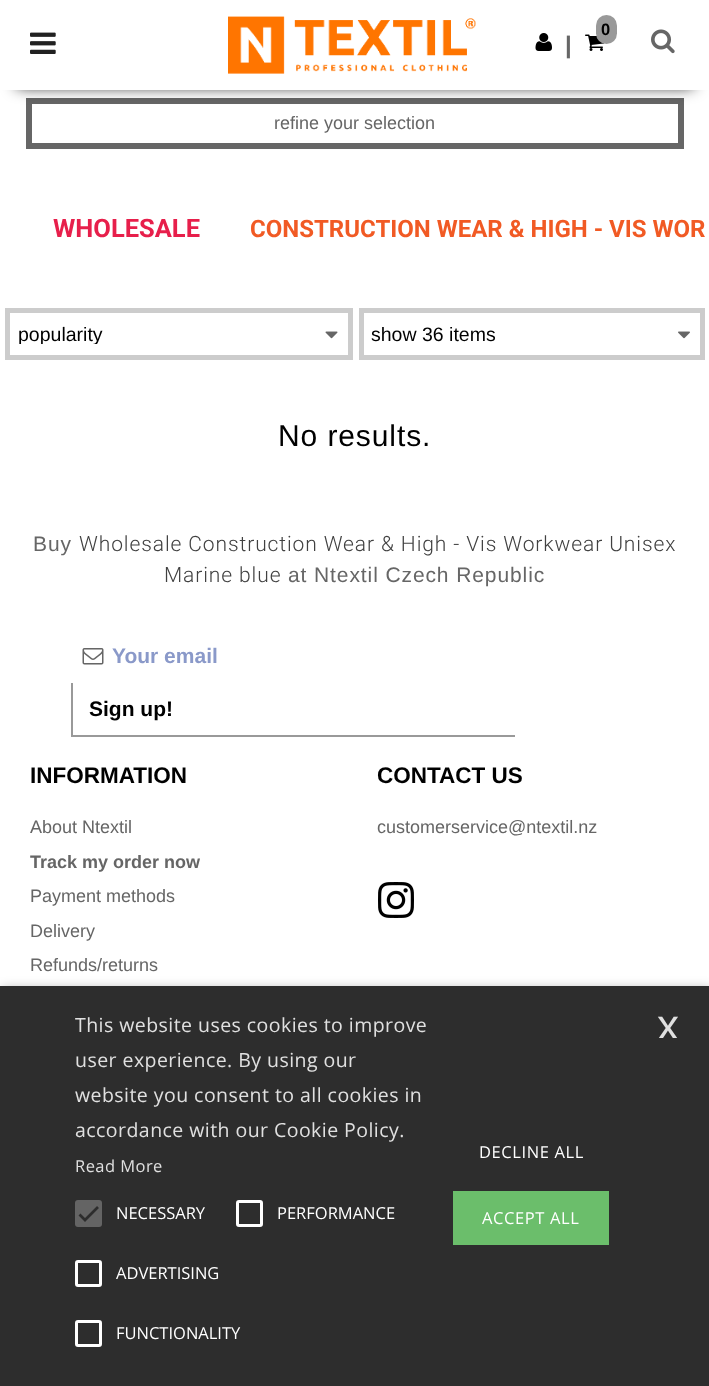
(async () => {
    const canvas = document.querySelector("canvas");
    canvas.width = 709;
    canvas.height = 1386;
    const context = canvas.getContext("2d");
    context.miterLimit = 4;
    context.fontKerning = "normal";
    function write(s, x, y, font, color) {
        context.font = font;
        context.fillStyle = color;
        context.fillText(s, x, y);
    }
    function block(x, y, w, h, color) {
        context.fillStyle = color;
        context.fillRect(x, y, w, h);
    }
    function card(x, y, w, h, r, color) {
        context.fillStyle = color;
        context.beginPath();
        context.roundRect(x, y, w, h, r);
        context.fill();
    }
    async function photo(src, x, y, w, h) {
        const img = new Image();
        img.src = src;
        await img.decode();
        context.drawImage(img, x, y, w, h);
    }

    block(0, 0, 709, 1386, "rgb(255, 255, 255)");
    context.strokeStyle = "rgb(102, 102, 102)";
    context.lineWidth = 6;
    context.strokeRect(29, 101, 652, 45);
    context.fillStyle = "rgb(0, 0, 0)";
    context.filter = "blur(8px)";
    context.beginPath();
    context.rect(17, 29, 676, 57);
    context.fill();
    context.filter = "none";
    block(0, 10, 709, 80, "rgb(255, 255, 255)");
    await photo("media/1.png", 30, 32, 26, 22);
    await photo("media/2.png", 228, 16, 248, 58);
    await photo("media/3.png", 535, 33, 17, 18);
    write("|", 565, 53, "bold 24px Liberation Sans", "rgb(102, 102, 102)");
    await photo("media/4.png", 585, 34, 20, 17);
    card(596, 15, 21, 29, 10.5, "rgb(153, 153, 153)");
    write("0", 601, 35, "bold 16.5px Liberation Sans", "rgb(0, 0, 0)");
    await photo("media/5.png", 651, 29, 24, 25);
    write("refine your selection", 274, 129, "18px Liberation Sans", "rgb(102, 102, 102)");
    context.strokeStyle = "rgb(204, 204, 204)";
    context.lineWidth = 5;
    context.strokeRect(7.5, 310.5, 343, 47);
    context.save();
    context.beginPath();
    context.rect(18, 324, 293, 20);
    context.clip();
    write("popularity", 18, 341, "19.5px Liberation Sans", "rgb(0, 0, 0)");
    context.restore();
    await photo("media/6.png", 325, 331, 13, 8);
    context.strokeRect(361.5, 310.5, 341, 47);
    write("show 36 items", 371, 341, "19.5px Liberation Sans", "rgb(0, 0, 0)");
    await photo("media/7.png", 678, 331, 12, 8);
    context.letterSpacing = "0.9px";
    write("No results.", 278, 446, "30px Liberation Sans", "rgb(0, 0, 0)");
    context.letterSpacing = "0px";
    write("WHOLESALE", 53, 237, "bold 25.5px Roboto", "rgb(231, 31, 75)");
    write("CONSTRUCTION WEAR & HIGH - VIS WOR", 250, 237, "bold 24px Roboto", "rgb(241, 90, 36)");
    context.letterSpacing = "0.9px";
    write("Buy", 33, 551, "21px Liberation Sans", "rgb(102, 102, 102)");
    write("Wholesale Construction Wear & High - Vis Workwear Unisex", 79, 551, "300 21px Roboto", "rgb(65, 65, 65)");
    write("Marine blue", 164, 582, "300 21px Roboto", "rgb(65, 65, 65)");
    write("at Ntextil Czech Republic", 288, 582, "21px Liberation Sans", "rgb(102, 102, 102)");
    block(71, 735, 444, 2, "rgb(153, 153, 153)");
    await photo("media/8.png", 82, 648, 22, 17);
    context.letterSpacing = "0px";
    write("Your email", 112, 663, "bold 21px Liberation Sans", "rgb(138, 153, 201)");
    block(71, 683, 2, 52, "rgb(153, 153, 153)");
    write("Sign up!", 89, 716, "bold 21px Liberation Sans", "rgb(0, 0, 0)");
    write("INFORMATION", 30, 783, "bold 22.5px Liberation Sans", "rgb(0, 0, 0)");
    write("About Ntextil", 30, 833, "18px Liberation Sans", "rgb(102, 102, 102)");
    write("Track my order now", 30, 868, "bold 18px Liberation Sans", "rgb(102, 102, 102)");
    write("Payment methods", 30, 902, "18px Liberation Sans", "rgb(102, 102, 102)");
    write("Delivery", 30, 937, "18px Liberation Sans", "rgb(102, 102, 102)");
    write("Refunds/returns", 30, 971, "18px Liberation Sans", "rgb(102, 102, 102)");
    write("CONTACT US", 377, 783, "bold 22.5px Liberation Sans", "rgb(0, 0, 0)");
    write("customerservice@ntextil.nz", 377, 833, "18px Liberation Sans", "rgb(102, 102, 102)");
    await photo("media/9.png", 378, 882, 36, 36);
    context.fillStyle = "rgba(0, 0, 0, 0.35)";
    context.filter = "blur(6px)";
    context.beginPath();
    context.rect(2, 989, 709, 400);
    context.fill();
    context.filter = "none";
    block(0, 986, 709, 400, "rgb(45, 45, 45)");
    context.letterSpacing = "0.45px";
    write("This website uses cookies to improve", 75, 1032, "19.5px Open Sans", "rgb(224, 224, 224)");
    write("user experience. By using our", 75, 1067, "19.5px Open Sans", "rgb(224, 224, 224)");
    write("website you consent to all cookies in", 75, 1102, "19.5px Open Sans", "rgb(224, 224, 224)");
    write("accordance with our Cookie Policy.", 75, 1137, "19.5px Open Sans", "rgb(224, 224, 224)");
    write("Read More", 75, 1172, "16.5px Open Sans", "rgb(224, 224, 224)");
    card(75, 1200, 27, 27, 3, "rgb(100, 100, 100)");
    context.beginPath();
    context.moveTo(79.5, 1214.5);
    context.lineTo(85, 1220);
    context.lineTo(98, 1207);
    context.strokeStyle = "rgb(45, 45, 45)";
    context.lineWidth = 2.7;
    context.stroke();
    context.letterSpacing = "0px";
    write("NECESSARY", 116, 1219, "16.5px Open Sans", "rgb(255, 255, 255)");
    context.beginPath();
    context.roundRect(237.5, 1201.5, 24, 24, 1.5);
    context.strokeStyle = "rgb(255, 255, 255)";
    context.lineWidth = 3;
    context.stroke();
    write("PERFORMANCE", 277, 1219, "16.5px Open Sans", "rgb(255, 255, 255)");
    context.beginPath();
    context.roundRect(76.5, 1261.5, 24, 24, 1.5);
    context.stroke();
    write("ADVERTISING", 116, 1279, "16.5px Open Sans", "rgb(255, 255, 255)");
    context.beginPath();
    context.roundRect(76.5, 1321.5, 24, 24, 1.5);
    context.stroke();
    write("FUNCTIONALITY", 116, 1339, "16.5px Open Sans", "rgb(255, 255, 255)");
    context.save();
    context.beginPath();
    context.rect(657, 1016, 23, 22);
    context.clip();
    write("x", 657, 1040, "44px Liberation Sans", "rgb(224, 224, 224)");
    context.restore();
    context.letterSpacing = "0.6px";
    write("DECLINE ALL", 479, 1158, "16.5px Open Sans", "rgb(255, 255, 255)");
    block(453, 1191, 156, 54, "rgb(107, 190, 107)");
    write("ACCEPT ALL", 482, 1224, "16.5px Open Sans", "rgb(255, 255, 255)");
})();
